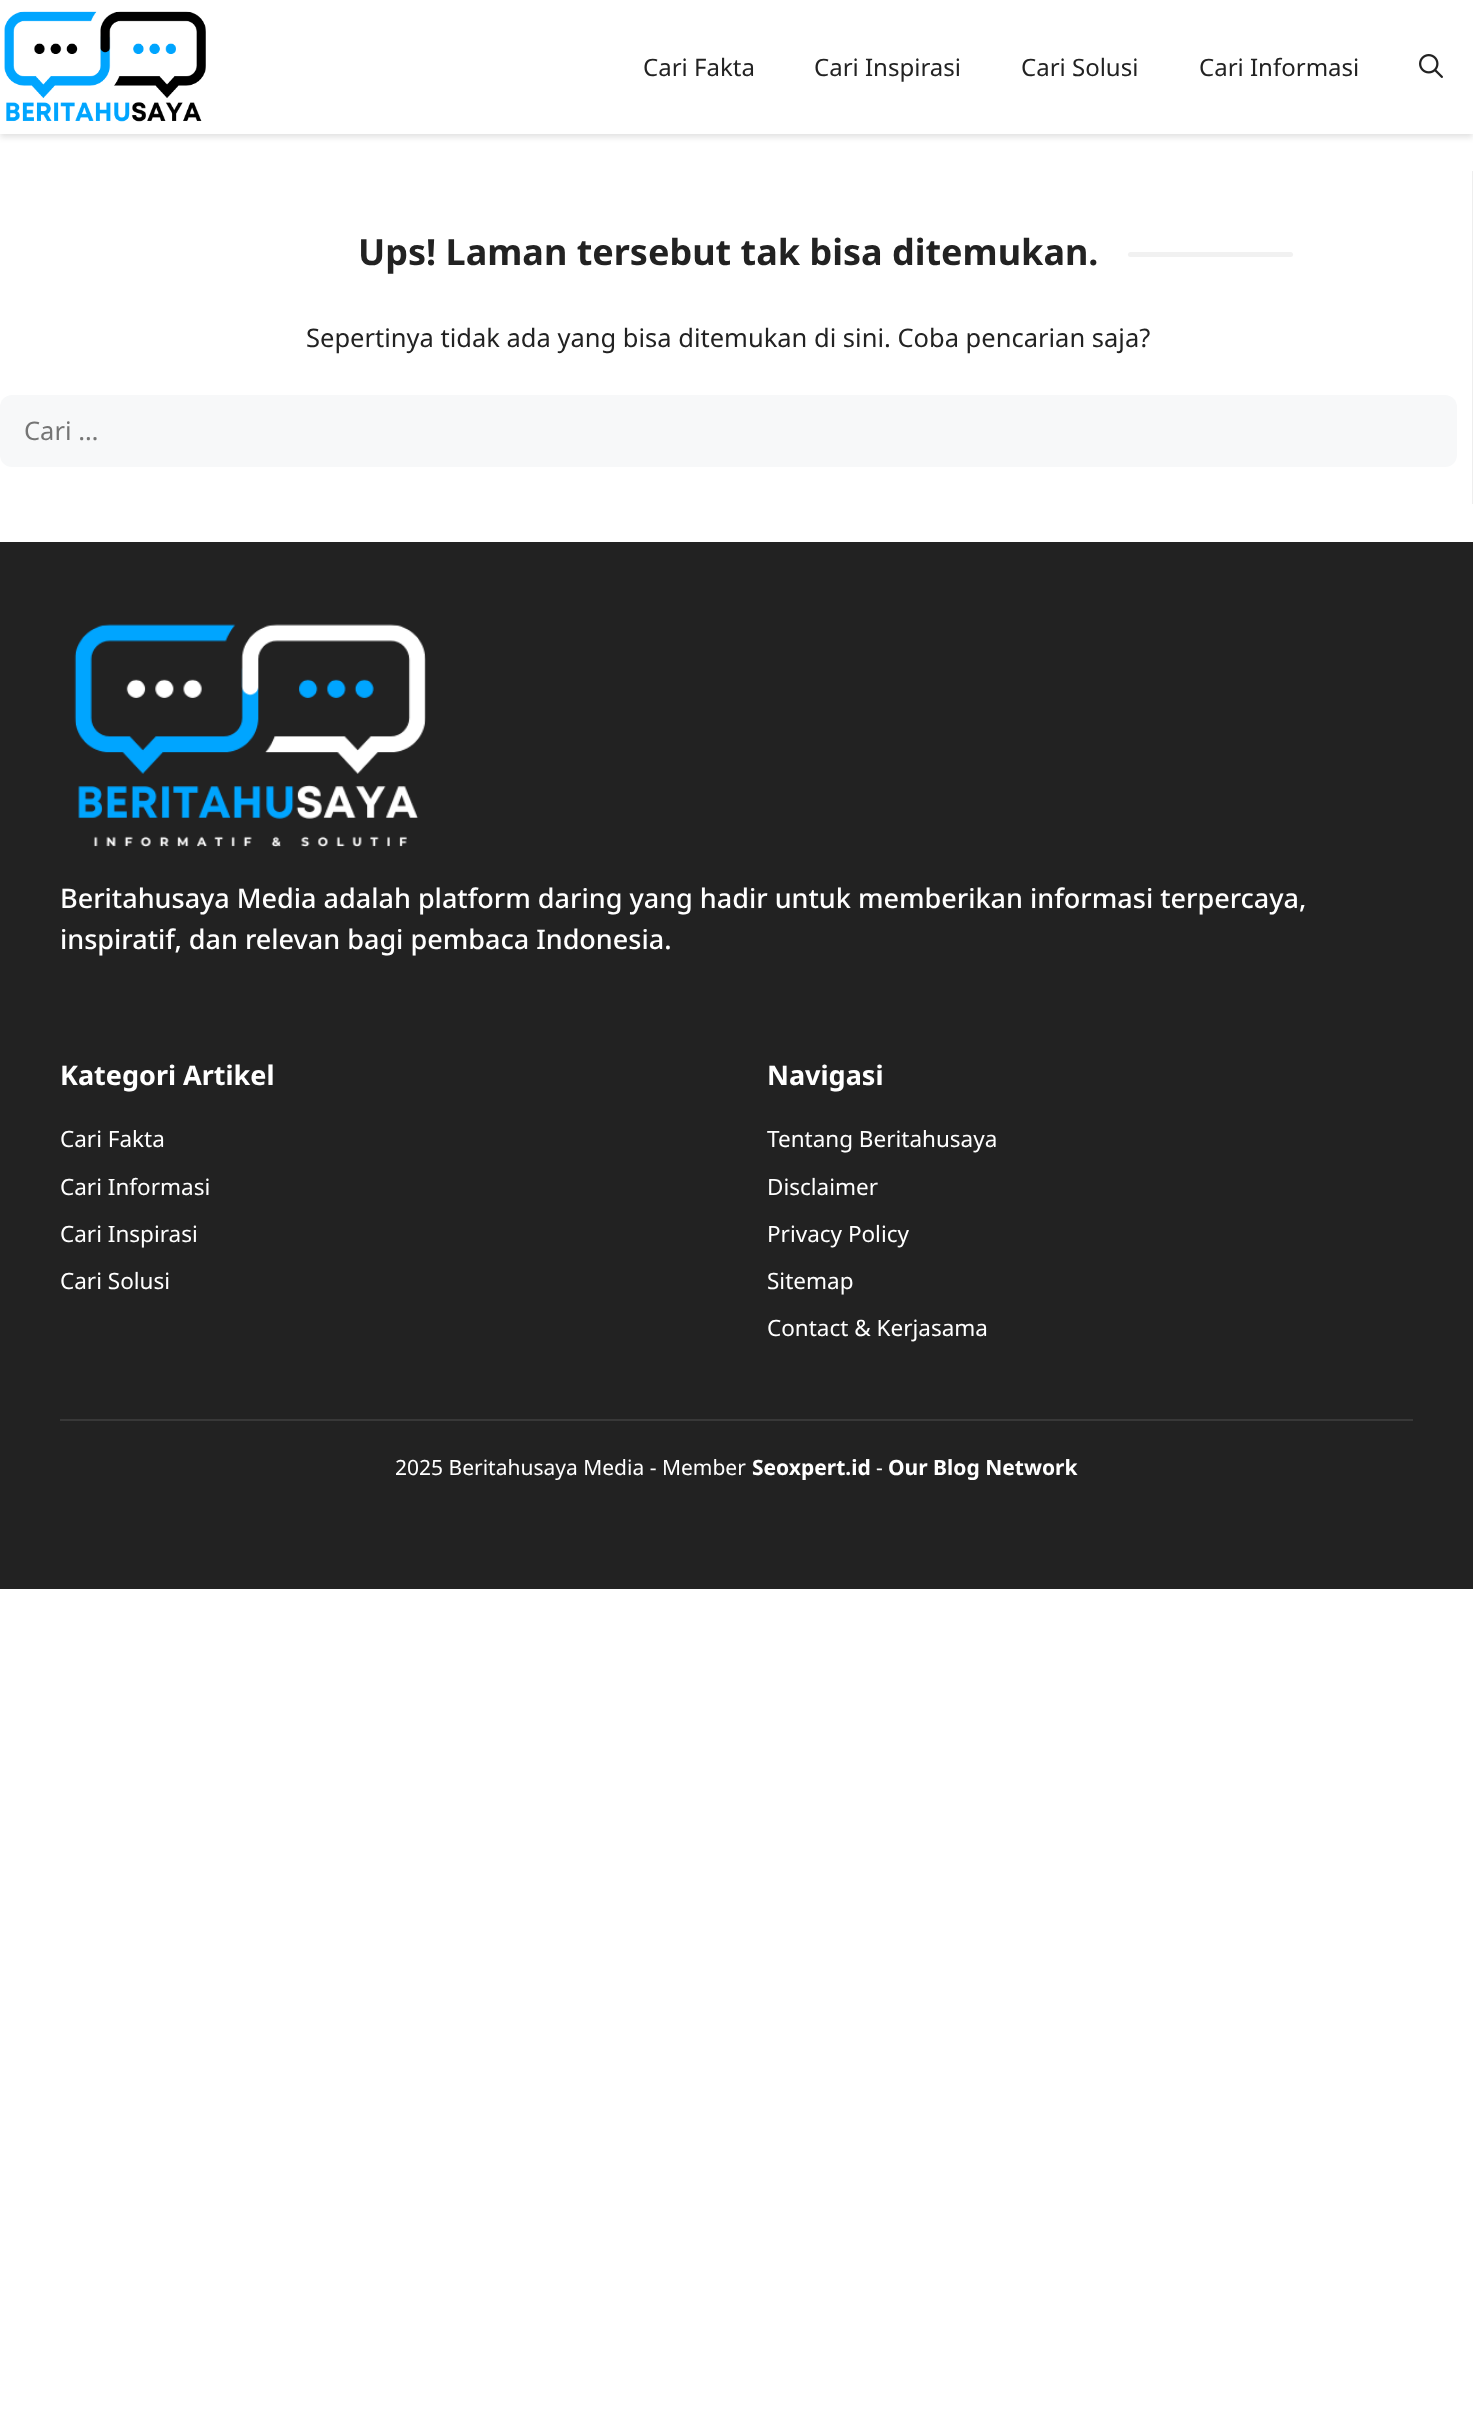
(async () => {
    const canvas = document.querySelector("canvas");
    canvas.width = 1473;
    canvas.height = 2416;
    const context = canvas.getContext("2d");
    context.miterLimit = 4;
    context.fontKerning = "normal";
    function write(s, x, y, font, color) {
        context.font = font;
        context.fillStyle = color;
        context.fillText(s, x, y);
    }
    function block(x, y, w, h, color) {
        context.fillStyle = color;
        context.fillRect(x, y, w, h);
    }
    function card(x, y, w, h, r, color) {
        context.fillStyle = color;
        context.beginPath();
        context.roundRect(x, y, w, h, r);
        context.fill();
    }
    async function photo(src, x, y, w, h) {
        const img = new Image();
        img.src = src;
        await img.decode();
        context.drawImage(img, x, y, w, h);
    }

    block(0, 0, 1473, 2416, "rgb(255, 255, 255)");
    context.fillStyle = "rgba(0, 0, 0, 0.12)";
    context.filter = "blur(3px)";
    context.beginPath();
    context.rect(0, 3, 1473, 134);
    context.fill();
    context.filter = "none";
    block(0, 0, 1473, 134, "rgb(255, 255, 255)");
    await photo("media/1.png", 4, 11, 202, 111);
    write("Cari Fakta", 643, 76, "24px Noto Sans", "rgb(34, 34, 34)");
    write("Cari Inspirasi", 814, 76, "24px Noto Sans", "rgb(34, 34, 34)");
    write("Cari Solusi", 1021, 76, "24px Noto Sans", "rgb(34, 34, 34)");
    write("Cari Informasi", 1199, 76, "24px Noto Sans", "rgb(34, 34, 34)");
    await photo("media/2.png", 1419, 54, 24, 24);
    block(1472, 171, 1, 333, "rgb(238, 238, 238)");
    write("Ups! Laman tersebut tak bisa ditemukan.", 358, 265, "bold 36px Noto Sans", "rgb(34, 34, 34)");
    card(1128, 252, 165, 5, 2.5, "rgb(241, 241, 241)");
    write("Sepertinya tidak ada yang bisa ditemukan di sini. Coba pencarian saja?", 306, 347, "25.5px Noto Sans", "rgb(34, 34, 34)");
    card(0, 395, 1457, 72, 12, "rgb(247, 248, 249)");
    write("Cari …", 24, 440, "25.5px Noto Sans", "rgb(117, 117, 117)");
    block(0, 542, 1473, 1047, "rgb(34, 34, 34)");
    await photo("media/3.png", 74, 624, 352, 224);
    write("Beritahusaya Media adalah platform daring yang hadir untuk memberikan informasi terpercaya,", 60, 908, "500 27px Noto Sans", "rgb(255, 255, 255)");
    write("inspiratif, dan relevan bagi pembaca Indonesia.", 60, 949, "500 27px Noto Sans", "rgb(255, 255, 255)");
    write("Kategori Artikel", 60, 1085, "bold 27px Noto Sans", "rgb(255, 255, 255)");
    write("Cari Fakta", 60, 1147, "22.5px Noto Sans", "rgb(255, 255, 255)");
    write("Cari Informasi", 60, 1195, "22.5px Noto Sans", "rgb(255, 255, 255)");
    write("Cari Inspirasi", 60, 1242, "22.5px Noto Sans", "rgb(255, 255, 255)");
    write("Cari Solusi", 60, 1289, "22.5px Noto Sans", "rgb(255, 255, 255)");
    write("Navigasi", 767, 1085, "bold 27px Noto Sans", "rgb(255, 255, 255)");
    write("Tentang Beritahusaya", 767, 1147, "22.5px Noto Sans", "rgb(255, 255, 255)");
    write("Disclaimer", 767, 1195, "22.5px Noto Sans", "rgb(255, 255, 255)");
    write("Privacy Policy", 767, 1242, "22.5px Noto Sans", "rgb(255, 255, 255)");
    write("Sitemap", 767, 1289, "22.5px Noto Sans", "rgb(255, 255, 255)");
    write("Contact & Kerjasama", 767, 1336, "22.5px Noto Sans", "rgb(255, 255, 255)");
    block(60, 1419, 1353, 2, "rgb(56, 56, 56)");
    write("2025 Beritahusaya Media - Member", 395, 1475, "21px Noto Sans", "rgb(255, 255, 255)");
    write("Seoxpert.id", 752, 1475, "bold 21px Noto Sans", "rgb(255, 255, 255)");
    write("-", 876, 1475, "21px Noto Sans", "rgb(255, 255, 255)");
    write("Our Blog Network", 888, 1475, "bold 21px Noto Sans", "rgb(255, 255, 255)");
})();
